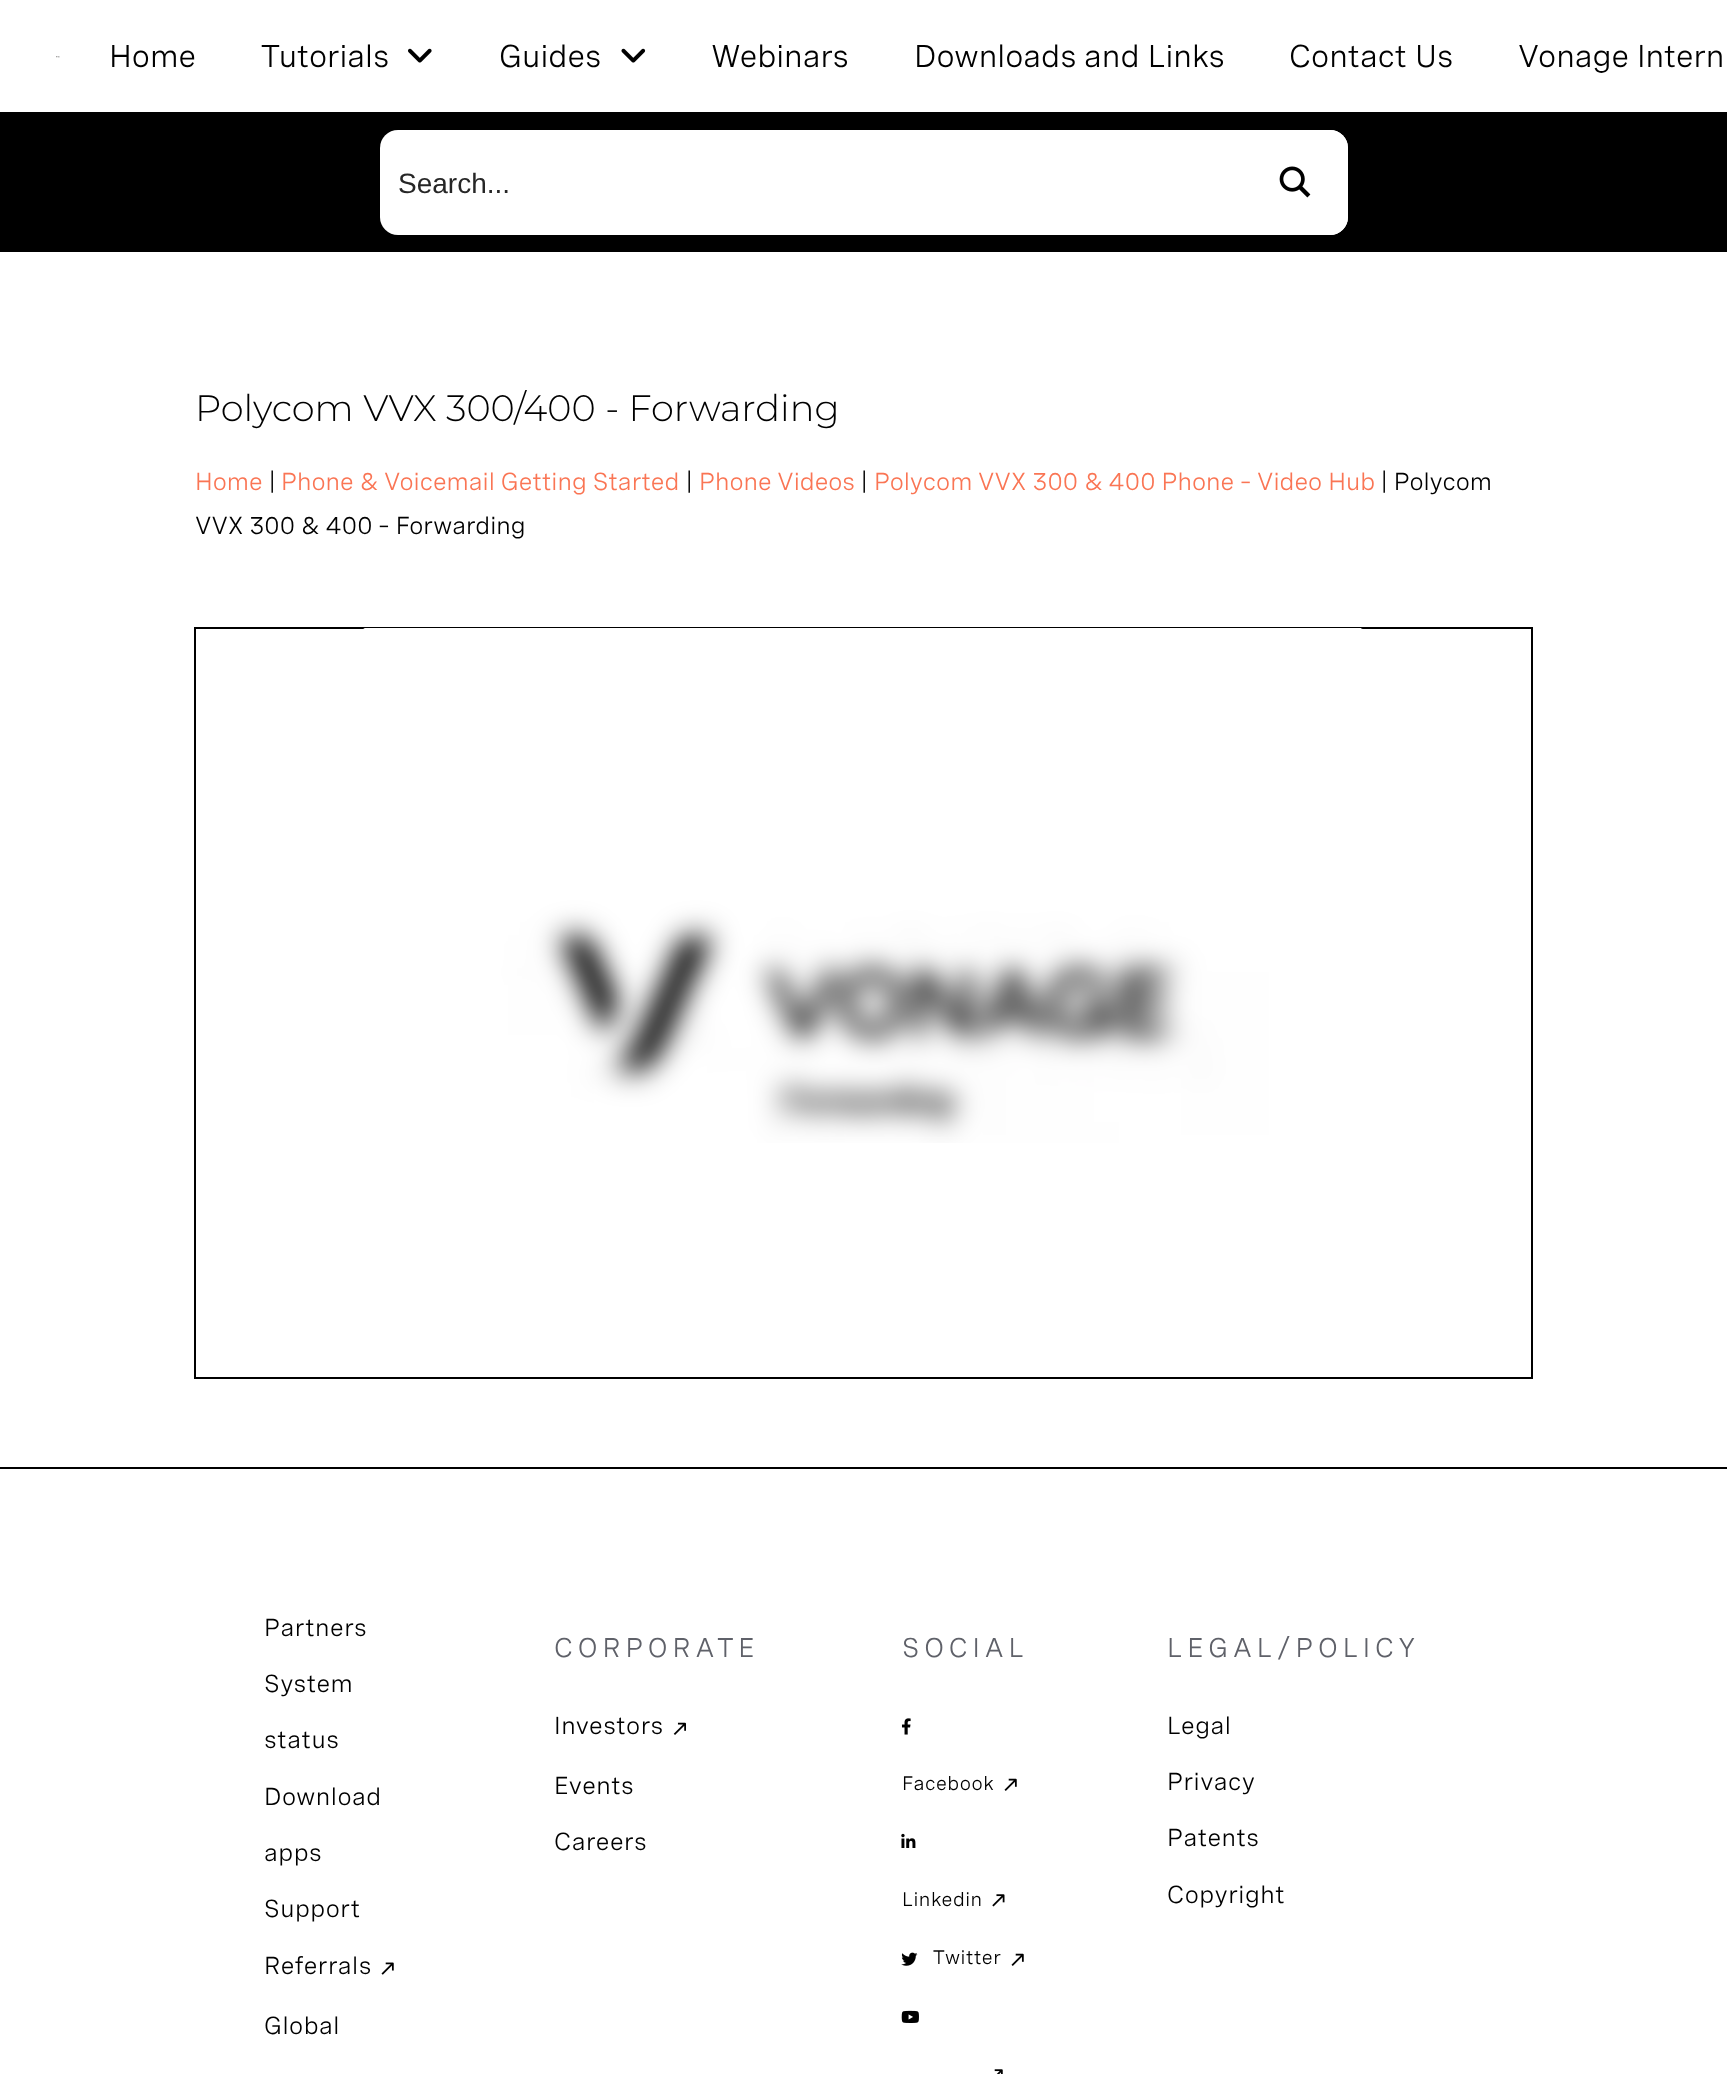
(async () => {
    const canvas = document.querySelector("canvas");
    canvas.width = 1727;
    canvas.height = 2074;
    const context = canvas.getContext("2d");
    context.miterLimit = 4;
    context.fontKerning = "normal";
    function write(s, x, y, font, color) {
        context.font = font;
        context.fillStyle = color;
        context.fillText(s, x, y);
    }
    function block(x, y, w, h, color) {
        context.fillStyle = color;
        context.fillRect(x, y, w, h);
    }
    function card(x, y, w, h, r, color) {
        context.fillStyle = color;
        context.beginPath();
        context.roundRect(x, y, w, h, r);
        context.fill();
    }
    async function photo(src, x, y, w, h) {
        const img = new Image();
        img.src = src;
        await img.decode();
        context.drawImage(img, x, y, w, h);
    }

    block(0, 0, 1727, 2074, "rgb(255, 255, 255)");
    await photo("media/1.png", 56, 56, 4, 2);
    write("Home", 109, 67, "31.5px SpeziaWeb", "rgb(0, 0, 0)");
    write("Tutorials", 261, 67, "31.5px SpeziaWeb", "rgb(0, 0, 0)");
    await photo("media/2.png", 408, 48, 24, 15);
    write("Guides", 499, 67, "31.5px SpeziaWeb", "rgb(0, 0, 0)");
    await photo("media/3.png", 621, 48, 25, 15);
    write("Webinars", 711, 67, "31.5px SpeziaWeb", "rgb(0, 0, 0)");
    write("Downloads and Links", 914, 67, "31.5px SpeziaWeb", "rgb(0, 0, 0)");
    write("Contact Us", 1289, 67, "31.5px SpeziaWeb", "rgb(0, 0, 0)");
    write("Vonage Intern", 1518, 67, "31.5px SpeziaWeb", "rgb(0, 0, 0)");
    block(0, 112, 1727, 140, "rgb(0, 0, 0)");
    card(380, 130, 968, 105, 18, "rgb(255, 255, 255)");
    write("Search...", 398, 193, "28px Liberation Sans", "rgb(38, 38, 38)");
    context.fillStyle = "rgb(255, 255, 255)";
    context.beginPath();
    context.roundRect(1243, 130, 105, 105, [0, 18, 18, 0]);
    context.fill();
    await photo("media/4.png", 1279, 166, 32, 32);
    write("Polycom VVX 300/400 - Forwarding", 195, 421, "100 36.75px Montserrat", "rgb(0, 0, 0)");
    write("Home", 195, 490, "24.5px SpeziaWeb", "rgb(250, 117, 84)");
    write("|", 269, 490, "24.5px SpeziaWeb", "rgb(0, 0, 0)");
    write("Phone & Voicemail Getting Started", 281, 490, "24.5px SpeziaWeb", "rgb(250, 117, 84)");
    write("|", 686, 490, "24.5px SpeziaWeb", "rgb(0, 0, 0)");
    write("Phone Videos", 699, 490, "24.5px SpeziaWeb", "rgb(250, 117, 84)");
    write("|", 861, 490, "24.5px SpeziaWeb", "rgb(0, 0, 0)");
    write("Polycom VVX 300 & 400 Phone – Video Hub", 874, 490, "24.5px SpeziaWeb", "rgb(250, 117, 84)");
    write("| Polycom", 1381, 490, "24.5px SpeziaWeb", "rgb(0, 0, 0)");
    write("VVX 300 & 400 – Forwarding", 195, 534, "24.5px SpeziaWeb", "rgb(0, 0, 0)");
    context.strokeStyle = "rgb(0, 0, 0)";
    context.lineWidth = 2;
    context.strokeRect(195, 628, 1337, 750);
    await photo("media/5.png", 363, 628, 1000, 515);
    block(0, 1467, 1727, 2, "rgb(0, 0, 0)");
    context.letterSpacing = "0.5px";
    write("Partners", 264, 1636, "24.5px SpeziaWeb", "rgb(0, 0, 0)");
    write("System", 264, 1692, "24.5px SpeziaWeb", "rgb(0, 0, 0)");
    write("status", 264, 1748, "24.5px SpeziaWeb", "rgb(0, 0, 0)");
    write("Download", 264, 1805, "24.5px SpeziaWeb", "rgb(0, 0, 0)");
    write("apps", 264, 1861, "24.5px SpeziaWeb", "rgb(0, 0, 0)");
    write("Support", 264, 1917, "24.5px SpeziaWeb", "rgb(0, 0, 0)");
    write("Referrals", 264, 1974, "24.5px SpeziaWeb", "rgb(0, 0, 0)");
    await photo("media/6.png", 381, 1962, 13, 13);
    write("Global", 264, 2034, "24.5px SpeziaWeb", "rgb(0, 0, 0)");
    context.letterSpacing = "4.9px";
    write("CORPORATE", 554, 1657, "27px SpeziaWeb", "rgb(95, 97, 105)");
    context.letterSpacing = "0.5px";
    write("Investors", 554, 1734, "24.5px SpeziaWeb", "rgb(0, 0, 0)");
    await photo("media/7.png", 673, 1722, 13, 13);
    write("Events", 554, 1794, "24.5px SpeziaWeb", "rgb(0, 0, 0)");
    write("Careers", 554, 1850, "24.5px SpeziaWeb", "rgb(0, 0, 0)");
    context.letterSpacing = "4.9px";
    write("SOCIAL", 902, 1657, "27px SpeziaWeb", "rgb(95, 97, 105)");
    await photo("media/8.png", 901, 1718, 10, 17);
    context.letterSpacing = "0.5px";
    write("Facebook", 902, 1790, "19.5px SpeziaWeb", "rgb(0, 0, 0)");
    await photo("media/9.png", 1004, 1778, 13, 13);
    await photo("media/10.png", 901, 1833, 15, 15);
    write("Linkedin", 902, 1906, "19.5px SpeziaWeb", "rgb(0, 0, 0)");
    await photo("media/11.png", 992, 1894, 13, 13);
    await photo("media/12.png", 901, 1952, 17, 14);
    write("Twitter", 933, 1964, "19.5px SpeziaWeb", "rgb(0, 0, 0)");
    await photo("media/9.png", 1011, 1953, 13, 13);
    await photo("media/13.png", 901, 2010, 18, 13);
    await photo("media/14.png", 994, 2069, 9, 5);
    context.letterSpacing = "4.9px";
    write("LEGAL/POLICY", 1167, 1657, "27px SpeziaWeb", "rgb(95, 97, 105)");
    context.letterSpacing = "0.5px";
    write("Legal", 1167, 1734, "24.5px SpeziaWeb", "rgb(0, 0, 0)");
    write("Privacy", 1167, 1790, "24.5px SpeziaWeb", "rgb(0, 0, 0)");
    write("Patents", 1167, 1846, "24.5px SpeziaWeb", "rgb(0, 0, 0)");
    write("Copyright", 1167, 1903, "24.5px SpeziaWeb", "rgb(0, 0, 0)");
})();
